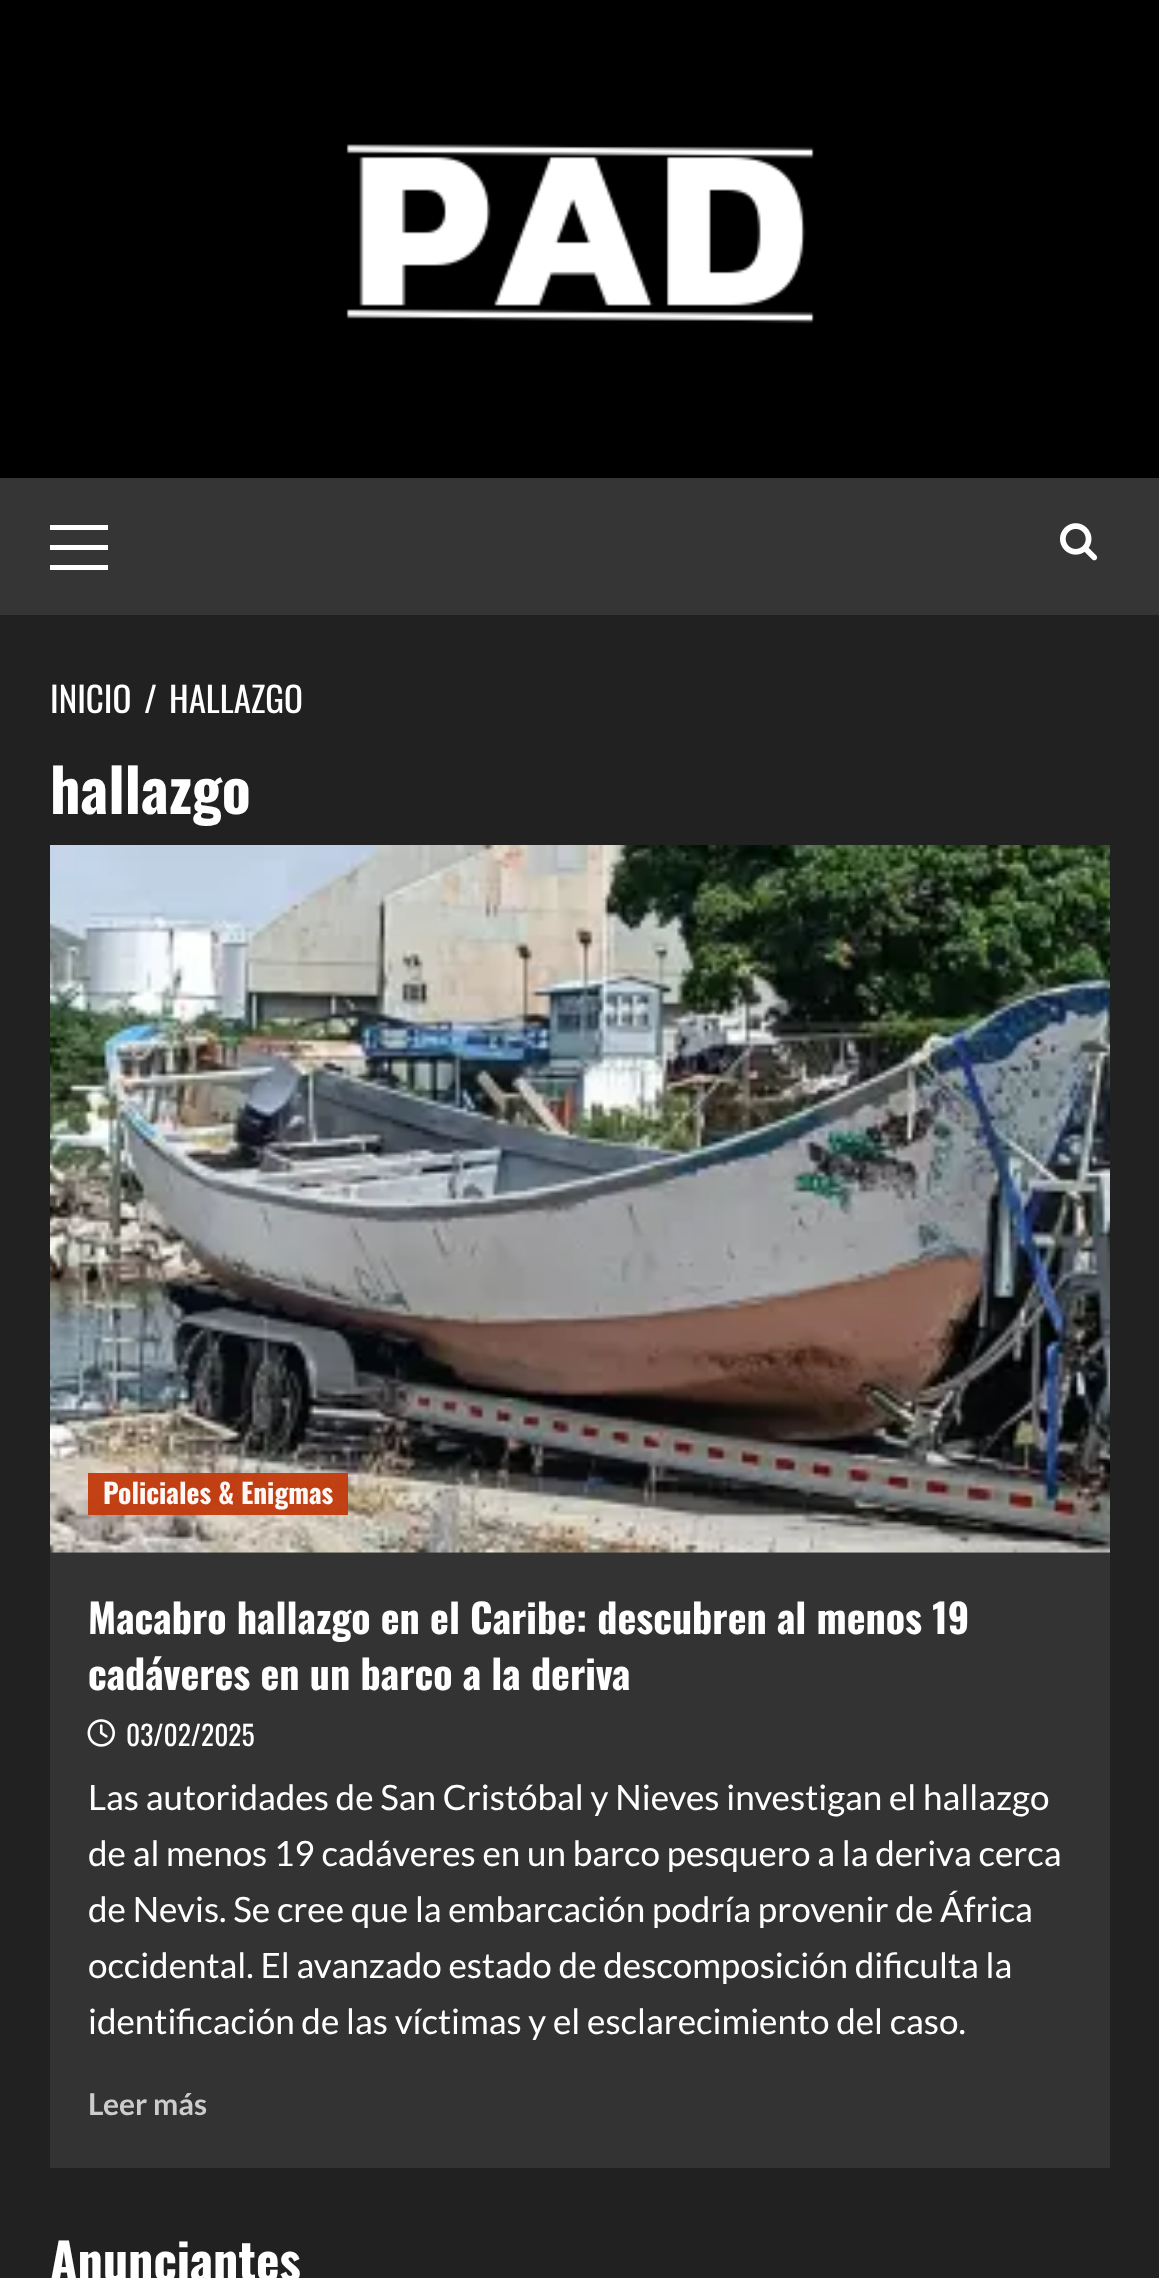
(async () => {
    const canvas = document.querySelector("canvas");
    canvas.width = 1159;
    canvas.height = 2278;
    const context = canvas.getContext("2d");
    context.miterLimit = 4;
    context.fontKerning = "normal";
    function write(s, x, y, font, color) {
        context.font = font;
        context.fillStyle = color;
        context.fillText(s, x, y);
    }
    function block(x, y, w, h, color) {
        context.fillStyle = color;
        context.fillRect(x, y, w, h);
    }
    async function photo(src, x, y, w, h) {
        const img = new Image();
        img.src = src;
        await img.decode();
        context.drawImage(img, x, y, w, h);
    }

    block(0, 0, 1159, 2278, "rgb(33, 33, 33)");
    block(0, 0, 1159, 478, "rgb(0, 0, 0)");
    await photo("media/1.png", 346, 144, 468, 180);
    block(0, 478, 1159, 137, "rgb(53, 53, 53)");
    block(50, 545, 58, 5, "rgb(255, 255, 255)");
    block(50, 525, 58, 5, "rgb(255, 255, 255)");
    block(50, 565, 58, 5, "rgb(255, 255, 255)");
    await photo("media/2.png", 1060, 523, 38, 38);
    write("INICIO", 50, 713, "35px Oswald", "rgb(255, 255, 255)");
    write("/", 144, 713, "35px Oswald", "rgb(255, 255, 255)");
    write("HALLAZGO", 169, 713, "35px Oswald", "rgb(255, 255, 255)");
    write("hallazgo", 50, 814, "bold 60px Oswald", "rgb(255, 255, 255)");
    block(50, 1553, 1060, 615, "rgb(51, 51, 51)");
    block(50, 1552, 1060, 1, "rgb(62, 62, 62)");
    await photo("media/3.png", 50, 845, 1060, 708);
    block(88, 1473, 260, 42, "rgba(194, 59, 14, 0.96)");
    write("Policiales & Enigmas", 103, 1504, "bold 27.5px Oswald", "rgb(253, 247, 246)");
    write("Macabro hallazgo en el Caribe: descubren al menos 19", 88, 1634, "bold 40px Oswald", "rgb(255, 255, 255)");
    write("cadáveres en un barco a la deriva", 88, 1690, "bold 40px Oswald", "rgb(255, 255, 255)");
    await photo("media/4.png", 87, 1719, 28, 28);
    write("03/02/2025", 126, 1746, "27.5px Oswald", "rgb(255, 255, 255)");
    write("Las autoridades de San Cristóbal y Nieves investigan el hallazgo", 88, 1810, "35px Lato", "rgb(255, 255, 255)");
    write("de al menos 19 cadáveres en un barco pesquero a la deriva cerca", 88, 1866, "35px Lato", "rgb(255, 255, 255)");
    write("de Nevis. Se cree que la embarcación podría provenir de África", 88, 1922, "35px Lato", "rgb(255, 255, 255)");
    write("occidental. El avanzado estado de descomposición dificulta la", 88, 1978, "35px Lato", "rgb(255, 255, 255)");
    write("identificación de las víctimas y el esclarecimiento del caso.", 88, 2034, "35px Lato", "rgb(255, 255, 255)");
    write("Leer más", 88, 2115, "bold 30px Lato", "rgb(204, 204, 204)");
    write("Anunciantes", 50, 2281, "bold 50px Oswald", "rgb(255, 255, 255)");
})();
